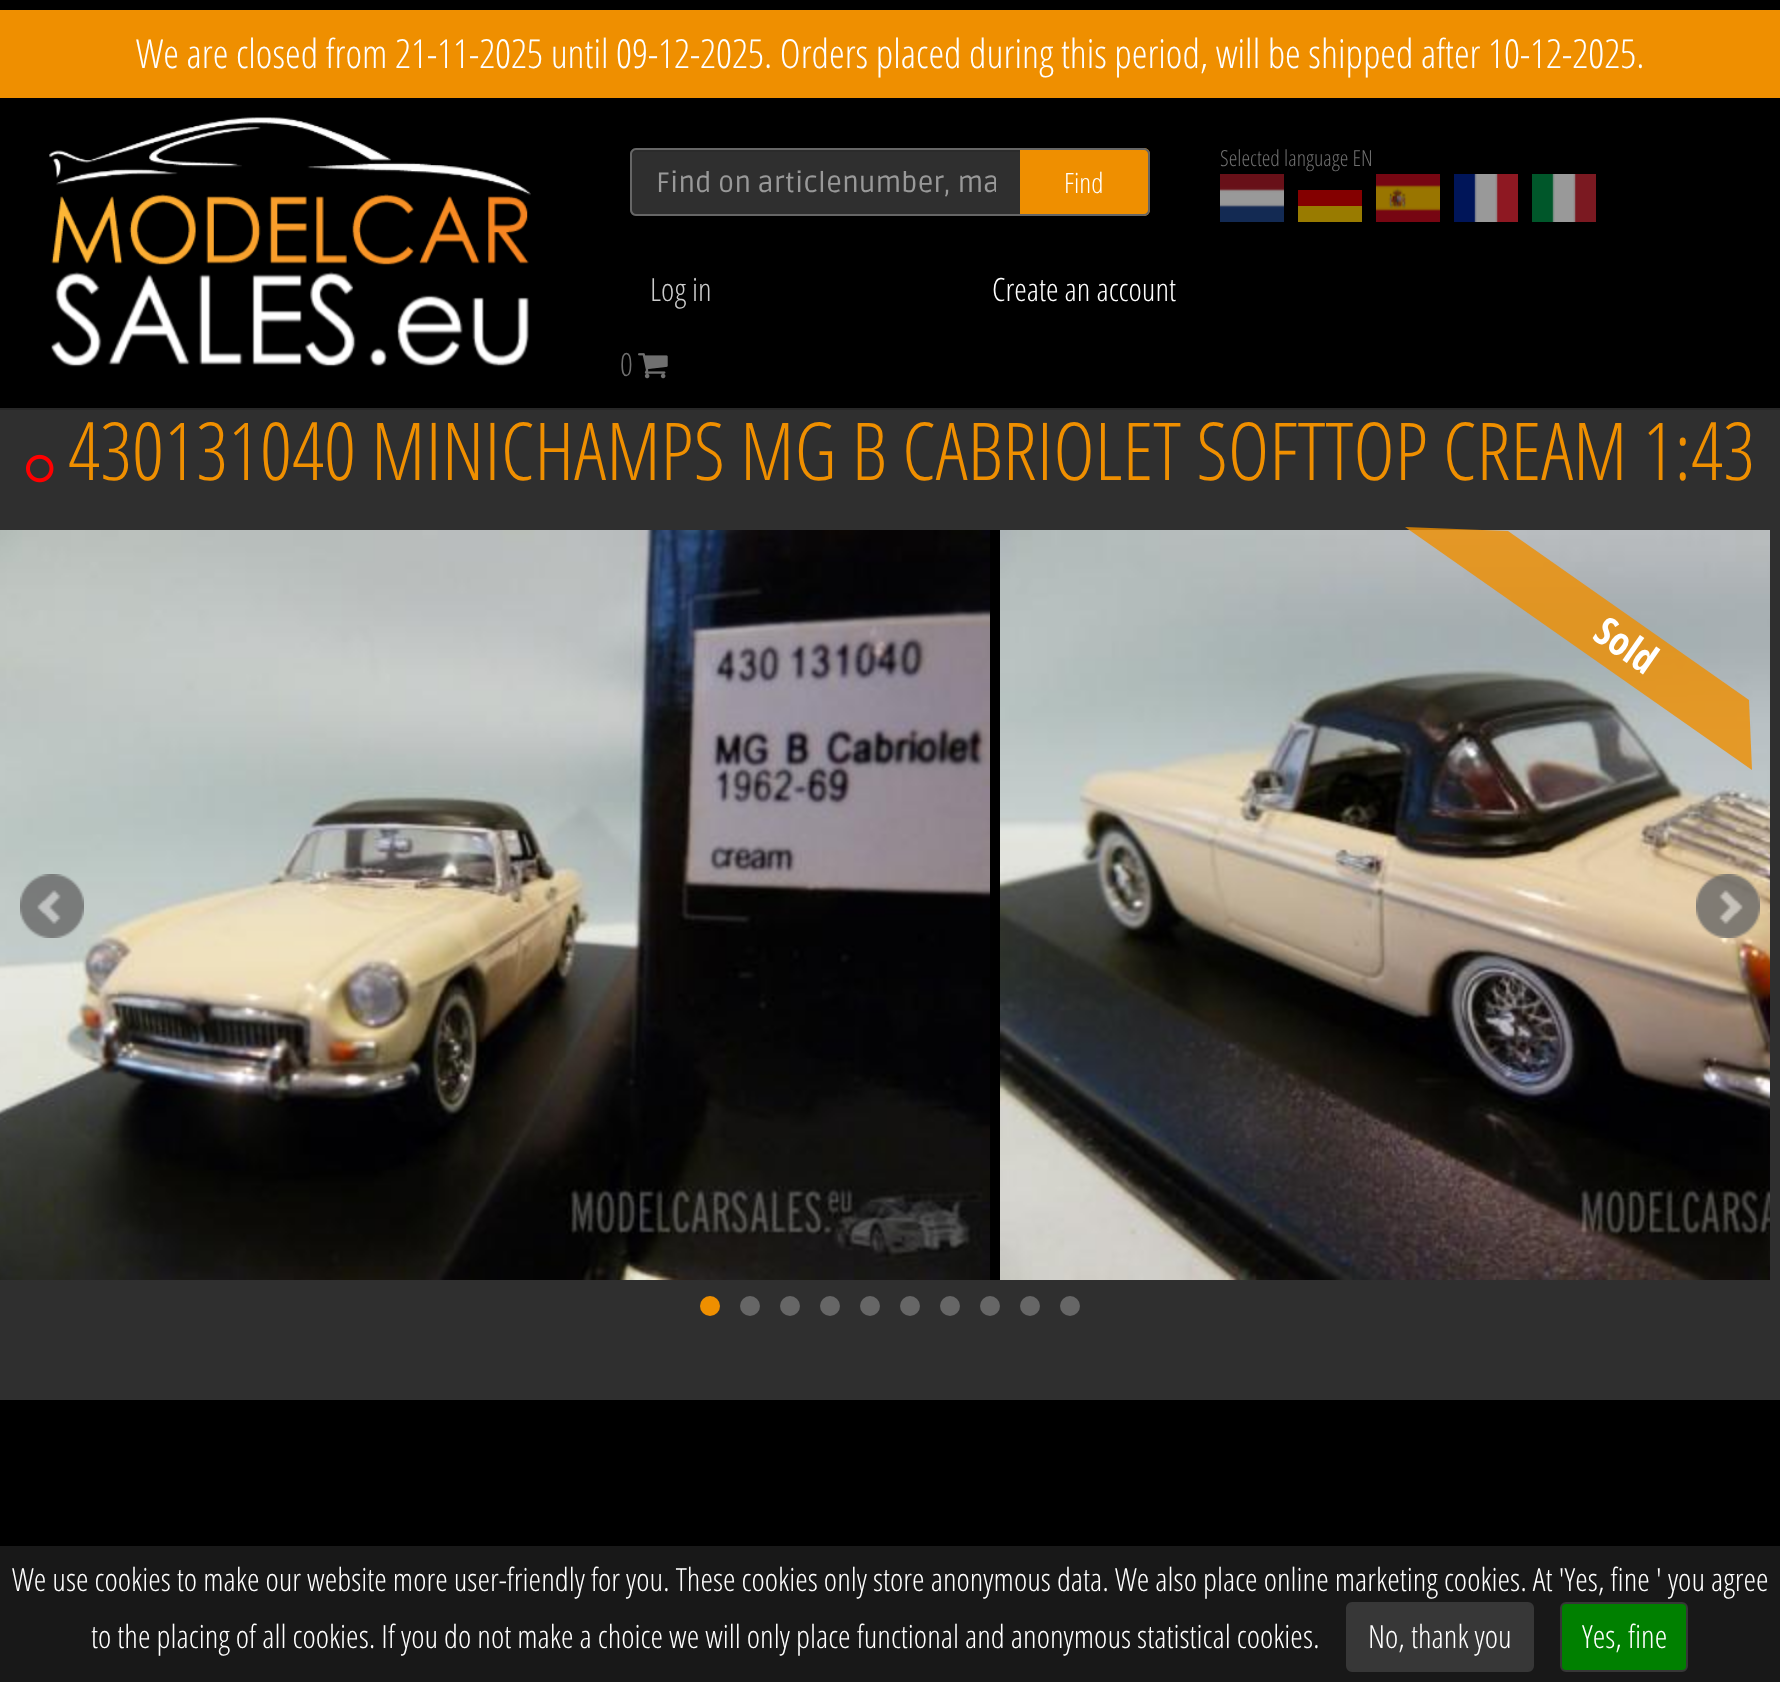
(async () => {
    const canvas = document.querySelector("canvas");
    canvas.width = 1780;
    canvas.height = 1682;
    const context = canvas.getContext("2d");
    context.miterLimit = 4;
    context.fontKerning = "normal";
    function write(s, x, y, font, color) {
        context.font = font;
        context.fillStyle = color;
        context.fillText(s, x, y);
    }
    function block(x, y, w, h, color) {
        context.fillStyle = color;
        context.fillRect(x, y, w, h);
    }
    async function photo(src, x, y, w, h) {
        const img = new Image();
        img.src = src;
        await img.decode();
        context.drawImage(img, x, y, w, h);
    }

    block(0, 0, 1780, 1682, "rgb(47, 47, 47)");
    block(0, 0, 1780, 408, "rgb(0, 0, 0)");
    block(0, 408, 1780, 2, "rgb(39, 39, 39)");
    block(0, 10, 1780, 88, "rgb(239, 143, 0)");
    write("We are closed from 21-11-2025 until 09-12-2025. Orders placed during this period, will be shipped after 10-12-2025.", 136, 68, "300 40px Open Sans Condensed", "rgb(255, 255, 255)");
    await photo("media/1.png", 49, 117, 482, 250);
    write("Selected language EN", 1220, 166, "300 22px Open Sans Condensed", "rgb(111, 111, 111)");
    await photo("media/2.png", 1220, 174, 64, 48);
    await photo("media/3.png", 1298, 190, 64, 32);
    await photo("media/4.png", 1376, 174, 64, 48);
    await photo("media/5.png", 1454, 174, 64, 48);
    await photo("media/6.png", 1532, 174, 64, 48);
    context.fillStyle = "rgb(47, 47, 47)";
    context.beginPath();
    context.roundRect(630, 148, 390, 68, [6, 0, 0, 6]);
    context.fill();
    context.fillStyle = "rgb(43, 43, 43)";
    context.beginPath();
    context.moveTo(636, 152);
    context.lineTo(1020, 152);
    context.lineTo(1020, 150);
    context.lineTo(636, 150);
    context.bezierCurveTo(632, 150, 632, 153, 632, 156);
    context.bezierCurveTo(632, 154, 634, 152, 636, 152);
    context.closePath();
    context.fill();
    context.fillStyle = "rgb(102, 102, 102)";
    context.beginPath();
    context.moveTo(636, 148);
    context.lineTo(1020, 148);
    context.lineTo(1020, 216);
    context.lineTo(636, 216);
    context.bezierCurveTo(633, 216, 630, 213, 630, 210);
    context.lineTo(630, 154);
    context.bezierCurveTo(630, 151, 633, 148, 636, 148);
    context.closePath();
    context.moveTo(636, 150);
    context.lineTo(1020, 150);
    context.lineTo(1020, 214);
    context.lineTo(636, 214);
    context.bezierCurveTo(634, 214, 632, 212, 632, 210);
    context.lineTo(632, 154);
    context.bezierCurveTo(632, 152, 634, 150, 636, 150);
    context.closePath();
    context.fill("evenodd");
    context.save();
    context.beginPath();
    context.rect(656, 166, 340, 34);
    context.clip();
    write("Find on articlenumber, ma", 656, 192, "28px Ruda", "rgb(153, 153, 153)");
    context.restore();
    context.fillStyle = "rgb(239, 143, 0)";
    context.beginPath();
    context.roundRect(1020, 148, 130, 68, [0, 6, 6, 0]);
    context.fill();
    context.fillStyle = "rgb(102, 102, 102)";
    context.beginPath();
    context.moveTo(1020, 148);
    context.lineTo(1144, 148);
    context.bezierCurveTo(1147, 148, 1150, 151, 1150, 154);
    context.lineTo(1150, 210);
    context.bezierCurveTo(1150, 213, 1147, 216, 1144, 216);
    context.lineTo(1020, 216);
    context.closePath();
    context.moveTo(1020, 150);
    context.lineTo(1144, 150);
    context.bezierCurveTo(1146, 150, 1148, 152, 1148, 154);
    context.lineTo(1148, 210);
    context.bezierCurveTo(1148, 212, 1146, 214, 1144, 214);
    context.lineTo(1020, 214);
    context.closePath();
    context.fill("evenodd");
    write("Find", 1064, 193, "300 28px Open Sans Condensed", "rgb(255, 255, 255)");
    write("Log in", 650, 301, "300 32px Open Sans Condensed", "rgb(204, 204, 204)");
    write("Create an account", 992, 301, "300 32px Open Sans Condensed", "rgb(255, 255, 255)");
    write("0", 620, 376, "300 32px Open Sans Condensed", "rgb(111, 111, 111)");
    await photo("media/7.png", 638, 353, 30, 26);
    await photo("media/8.png", 26, 454, 28, 29);
    write("430131040 MINICHAMPS MG B CABRIOLET SOFTTOP CREAM 1:43", 68, 480, "300 80px Open Sans Condensed", "rgb(239, 143, 0)");
    block(990, 530, 10, 750, "rgb(0, 0, 0)");
    await photo("media/9.png", 0, 530, 990, 750);
    await photo("media/10.png", 1000, 530, 770, 750);
    await photo("media/11.png", 20, 874, 64, 64);
    await photo("media/12.png", 1696, 874, 64, 64);
    context.fillStyle = "rgb(239, 143, 0)";
    context.beginPath();
    context.arc(710, 1306, 10, 0, Math.PI * 2);
    context.fill();
    context.fillStyle = "rgb(102, 102, 102)";
    context.beginPath();
    context.arc(750, 1306, 10, 0, Math.PI * 2);
    context.fill();
    context.beginPath();
    context.arc(790, 1306, 10, 0, Math.PI * 2);
    context.fill();
    context.beginPath();
    context.arc(830, 1306, 10, 0, Math.PI * 2);
    context.fill();
    context.beginPath();
    context.arc(870, 1306, 10, 0, Math.PI * 2);
    context.fill();
    context.beginPath();
    context.arc(910, 1306, 10, 0, Math.PI * 2);
    context.fill();
    context.beginPath();
    context.arc(950, 1306, 10, 0, Math.PI * 2);
    context.fill();
    context.beginPath();
    context.arc(990, 1306, 10, 0, Math.PI * 2);
    context.fill();
    context.beginPath();
    context.arc(1030, 1306, 10, 0, Math.PI * 2);
    context.fill();
    context.beginPath();
    context.arc(1070, 1306, 10, 0, Math.PI * 2);
    context.fill();
    context.fillStyle = "rgba(239, 143, 0, 0.8)";
    context.beginPath();
    context.moveTo(1752, 770);
    context.lineTo(1405, 527);
    context.lineTo(1508, 531);
    context.lineTo(1749, 700);
    context.closePath();
    context.fill();
    context.font = "bold 40px Open Sans Condensed";
    context.fillStyle = "rgb(255, 255, 255)";
    context.save();
    context.translate(1591, 638);
    context.rotate(35 * Math.PI / 180);
    context.fillText("Sold", 0, 0);
    context.restore();
    block(0, 1400, 1780, 282, "rgb(0, 0, 0)");
    block(0, 1546, 1780, 136, "rgba(27, 27, 27, 0.9)");
    write("We use cookies to make our website more user-friendly for you. These cookies only store anonymous data. We also place online marketing cookies. At 'Yes, fine ' you agree", 12, 1591, "300 32px Open Sans Condensed", "rgb(255, 255, 255)");
    write("to the placing of all cookies. If you do not make a choice we will only place functional and anonymous statistical cookies.", 91, 1648, "300 32px Open Sans Condensed", "rgb(255, 255, 255)");
    context.fillStyle = "rgb(55, 55, 55)";
    context.beginPath();
    context.roundRect(1347, 1603, 186, 68, 5);
    context.fill();
    context.strokeStyle = "rgb(55, 55, 55)";
    context.lineWidth = 2;
    context.stroke();
    write("No, thank you", 1368, 1648, "300 32px Open Sans Condensed", "rgb(255, 255, 255)");
    context.fillStyle = "rgb(0, 128, 0)";
    context.beginPath();
    context.roundRect(1561, 1603, 126, 68, 5);
    context.fill();
    context.stroke();
    write("Yes, fine", 1582, 1648, "300 32px Open Sans Condensed", "rgb(255, 255, 255)");
})();
